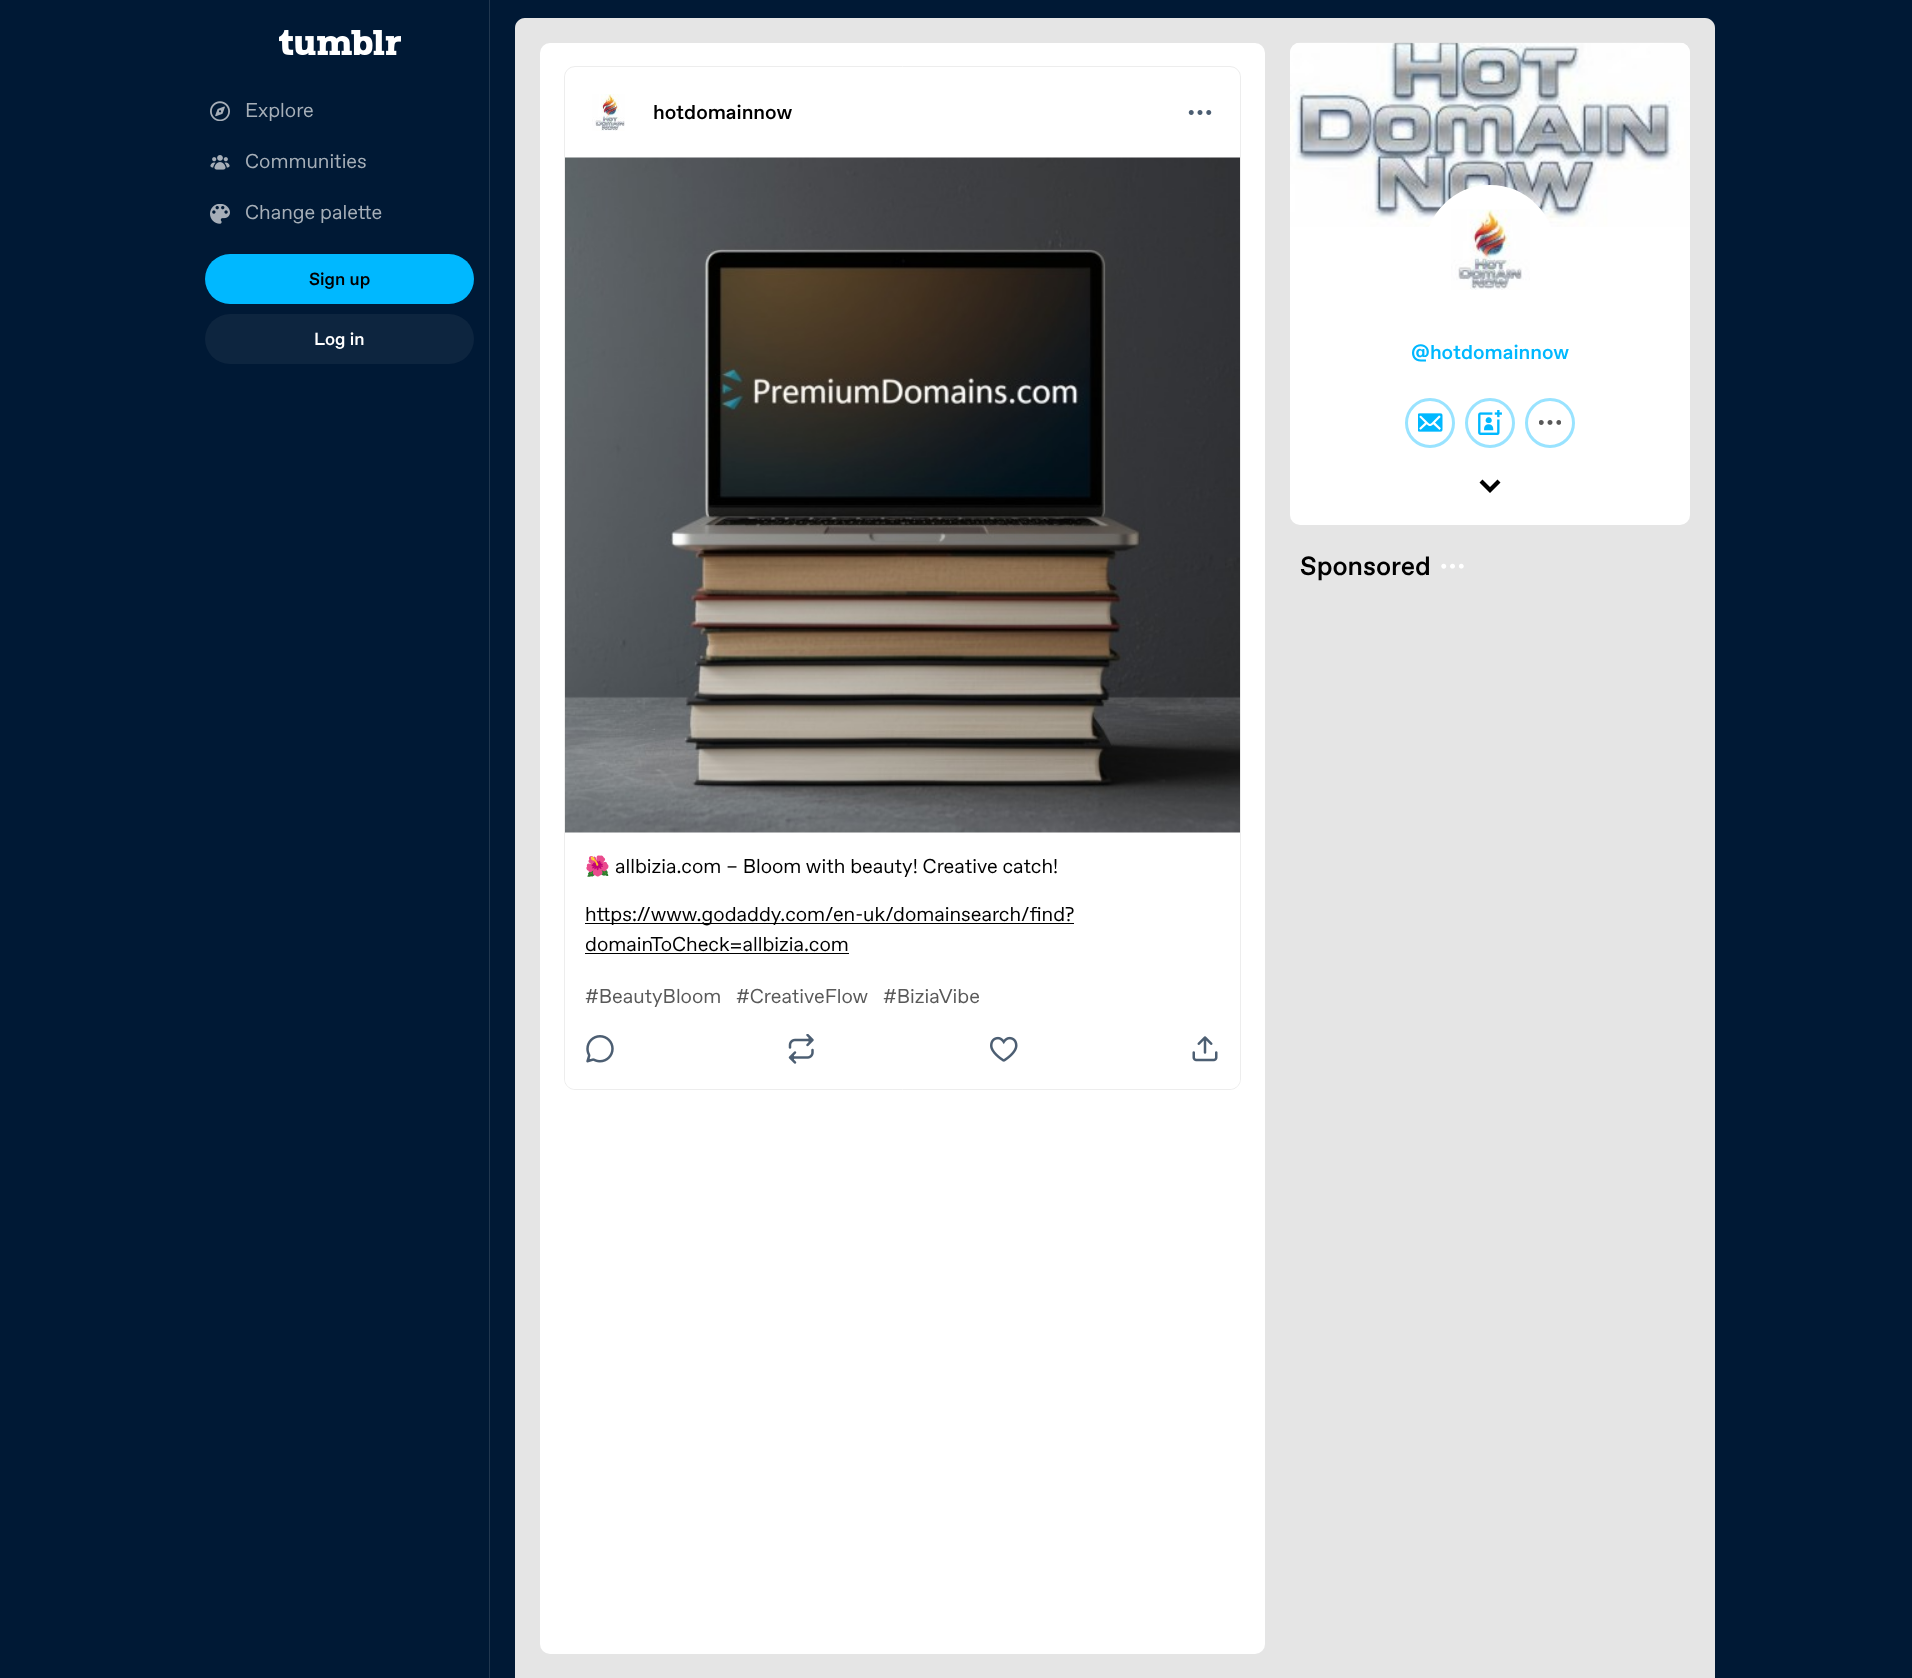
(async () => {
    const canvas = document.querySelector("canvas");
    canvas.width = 1912;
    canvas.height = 1678;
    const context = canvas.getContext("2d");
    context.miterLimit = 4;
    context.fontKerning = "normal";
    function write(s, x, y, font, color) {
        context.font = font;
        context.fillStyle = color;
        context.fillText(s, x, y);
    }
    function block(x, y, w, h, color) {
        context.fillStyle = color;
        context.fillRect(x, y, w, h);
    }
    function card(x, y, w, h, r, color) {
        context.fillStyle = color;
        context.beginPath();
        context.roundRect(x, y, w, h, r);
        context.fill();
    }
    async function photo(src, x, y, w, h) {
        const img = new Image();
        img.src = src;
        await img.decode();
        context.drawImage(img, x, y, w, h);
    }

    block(0, 0, 1912, 1678, "rgb(0, 25, 53)");
    block(489, 0, 1, 1678, "rgb(33, 55, 79)");
    await photo("media/1.png", 279, 30, 122, 25);
    await photo("media/2.png", 210, 101, 20, 20);
    write("Explore", 245, 117, "300 20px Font", "rgb(166, 175, 184)");
    await photo("media/3.png", 210, 155, 20, 15);
    write("Communities", 245, 168, "300 20px Font", "rgb(166, 175, 184)");
    await photo("media/4.png", 210, 204, 20, 20);
    write("Change palette", 245, 219, "300 20px Font", "rgb(166, 175, 184)");
    card(205, 254, 269, 50, 25, "rgb(0, 184, 255)");
    write("Sign up", 309, 285, "500 17.5px Font", "rgb(0, 0, 0)");
    card(205, 314, 269, 50, 25, "rgb(13, 37, 63)");
    write("Log in", 314, 345, "500 17.5px Font", "rgb(255, 255, 255)");
    context.beginPath();
    context.moveTo(525, 18);
    context.lineTo(1705, 18);
    context.bezierCurveTo(1710.5, 18, 1715, 22.5, 1715, 28);
    context.lineTo(1715, 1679);
    context.lineTo(515, 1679);
    context.lineTo(515, 28);
    context.bezierCurveTo(515, 22.5, 519.5, 18, 525, 18);
    context.closePath();
    context.fill();
    context.fillStyle = "rgba(0, 0, 0, 0.1)";
    context.beginPath();
    context.moveTo(525, 18);
    context.lineTo(1705, 18);
    context.bezierCurveTo(1710.5, 18, 1715, 22.5, 1715, 28);
    context.lineTo(1715, 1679);
    context.lineTo(515, 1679);
    context.lineTo(515, 28);
    context.bezierCurveTo(515, 22.5, 519.5, 18, 525, 18);
    context.closePath();
    context.fill();
    card(540, 43, 725, 1611, 10, "rgb(255, 255, 255)");
    context.beginPath();
    context.roundRect(564.5, 66.5, 676, 1023, 10.5);
    context.strokeStyle = "rgb(237, 237, 237)";
    context.stroke();
    card(565, 68, 675, 1021, 10, "rgb(255, 255, 255)");
    await photo("media/5.png", 592, 94, 33, 37);
    write("hotdomainnow", 653, 119, "500 20px Font", "rgb(0, 0, 0)");
    await photo("media/6.png", 1188, 110, 24, 5);
    await photo("media/7.png", 565, 157, 675, 676);
    write("🌺", 585, 873, "20px Noto Color Emoji", "rgb(0, 0, 0)");
    write("allbizia.com – Bloom with beauty! Creative catch!", 615, 873, "300 20px Font", "rgb(0, 0, 0)");
    block(585, 923, 489, 1, "rgb(0, 0, 0)");
    write("https://www.godaddy.com/en-uk/domainsearch/find?", 585, 921, "300 20px Font", "rgb(0, 0, 0)");
    write("domainToCheck=allbizia.com", 585, 951, "300 20px Font", "rgb(0, 0, 0)");
    block(585, 953, 264, 1, "rgb(0, 0, 0)");
    write("#BeautyBloom", 585, 1003, "300 20px Font", "rgb(89, 89, 89)");
    write("#CreativeFlow", 736, 1003, "300 20px Font", "rgb(89, 89, 89)");
    write("#BiziaVibe", 883, 1003, "300 20px Font", "rgb(89, 89, 89)");
    await photo("media/8.png", 586, 1035, 28, 28);
    await photo("media/9.png", 788, 1034, 26, 30);
    await photo("media/10.png", 990, 1036, 28, 26);
    await photo("media/11.png", 1192, 1036, 26, 26);
    card(1290, 43, 400, 482, 10, "rgb(255, 255, 255)");
    await photo("media/12.png", 1290, 42, 400, 185);
    context.beginPath();
    context.arc(1490, 250, 62.5, 0, Math.PI * 2);
    context.fill();
    context.strokeStyle = "rgb(255, 255, 255)";
    context.lineWidth = 5;
    context.stroke();
    await photo("media/13.png", 1451, 209, 79, 81);
    write("@hotdomainnow", 1411, 359, "500 20px Font", "rgb(0, 184, 255)");
    context.beginPath();
    context.arc(1430, 423, 23.5, 0, Math.PI * 2);
    context.strokeStyle = "rgb(153, 227, 255)";
    context.lineWidth = 3;
    context.stroke();
    await photo("media/14.png", 1418, 413, 25, 19);
    context.beginPath();
    context.arc(1490, 423, 23.5, 0, Math.PI * 2);
    context.stroke();
    await photo("media/15.png", 1478, 410, 24, 25);
    context.beginPath();
    context.arc(1550, 423, 23.5, 0, Math.PI * 2);
    context.stroke();
    await photo("media/16.png", 1539, 420, 22, 5);
    context.fillStyle = "rgb(0, 0, 0)";
    context.beginPath();
    context.moveTo(1497.5, 479.5);
    context.lineTo(1490, 487);
    context.lineTo(1482.5, 479.5);
    context.lineTo(1479.5, 482.5);
    context.lineTo(1490, 493);
    context.lineTo(1500.5, 482.5);
    context.lineTo(1497.5, 479.5);
    context.fill();
    write("Sponsored", 1300, 575, "500 26.25px Font", "rgb(0, 0, 0)");
    await photo("media/17.png", 1441, 563, 23, 6);
})();
